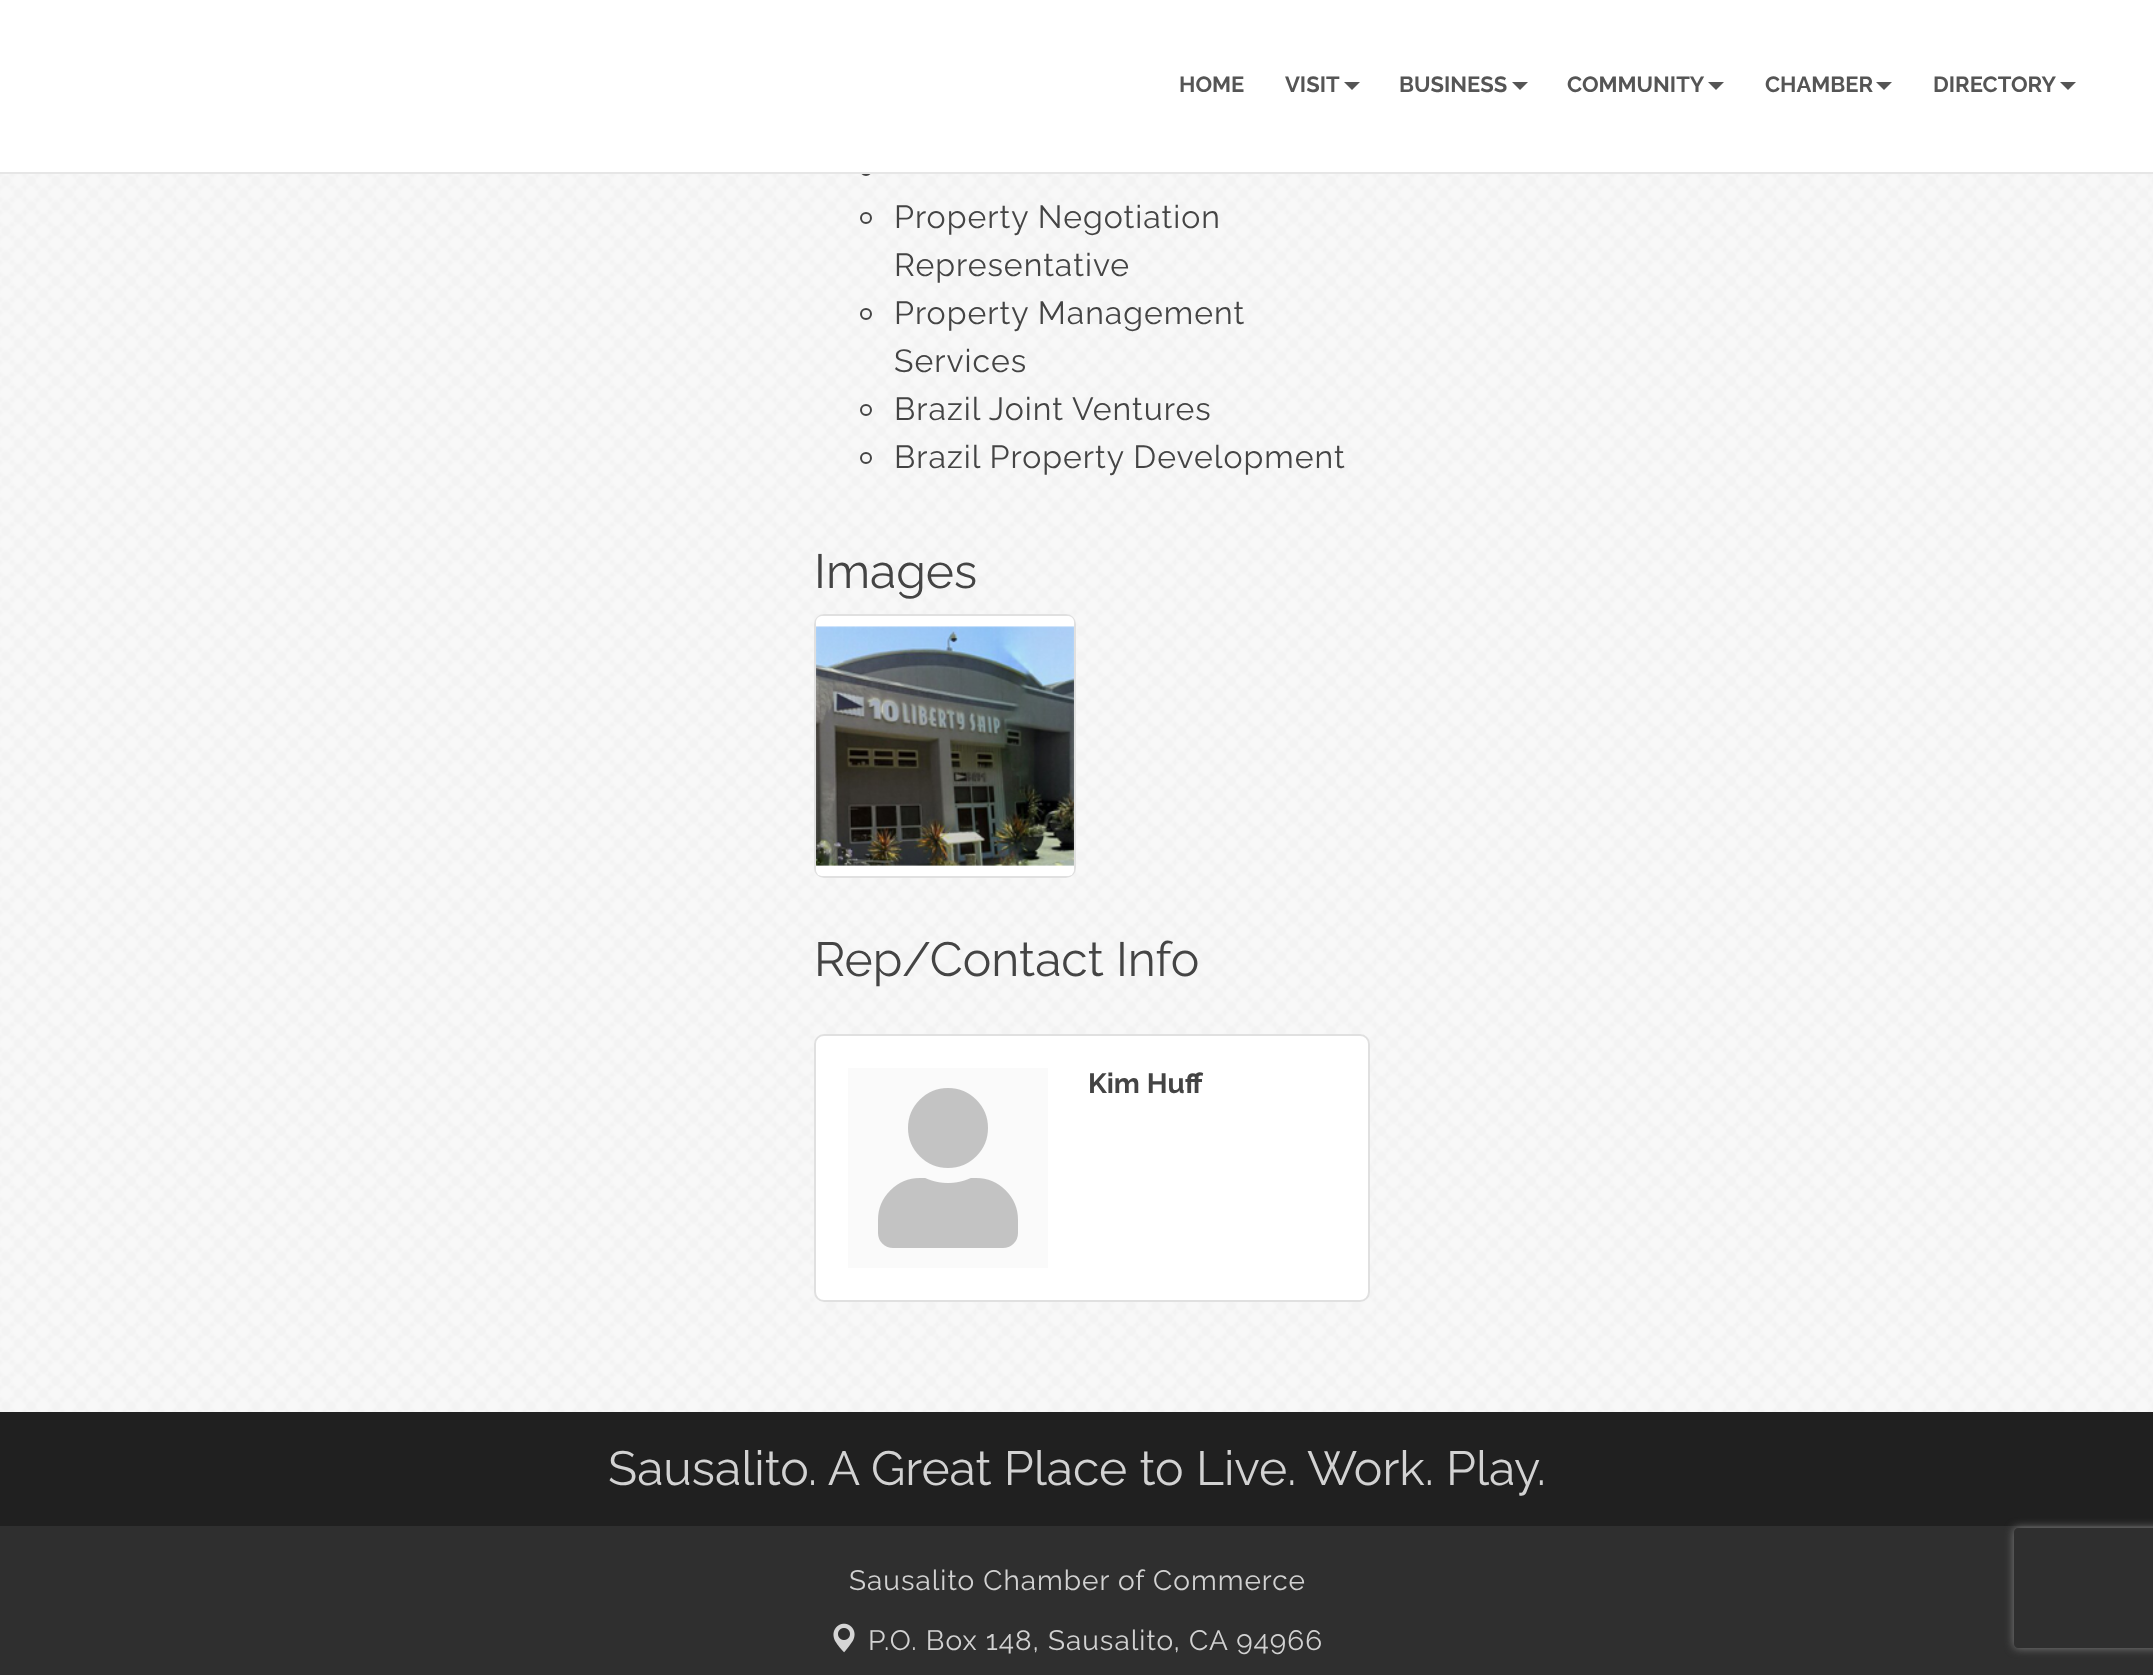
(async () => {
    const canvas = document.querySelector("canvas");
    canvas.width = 2153;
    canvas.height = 1675;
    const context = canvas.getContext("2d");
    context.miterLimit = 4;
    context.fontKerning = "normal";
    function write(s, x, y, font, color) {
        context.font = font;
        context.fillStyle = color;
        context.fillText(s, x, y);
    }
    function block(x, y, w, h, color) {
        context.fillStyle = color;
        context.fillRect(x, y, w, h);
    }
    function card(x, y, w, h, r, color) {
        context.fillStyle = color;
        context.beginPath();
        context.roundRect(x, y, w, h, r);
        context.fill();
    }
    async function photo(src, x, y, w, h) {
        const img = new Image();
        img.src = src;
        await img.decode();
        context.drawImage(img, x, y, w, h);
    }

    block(0, 0, 2153, 1675, "rgb(243, 243, 243)");
    await photo("media/1.png", 0, 174, 2153, 1238);
    context.beginPath();
    context.arc(866, 170, 5, 0, Math.PI * 2);
    context.strokeStyle = "rgb(68, 68, 68)";
    context.lineWidth = 2;
    context.stroke();
    block(0, 0, 2153, 172, "rgb(255, 255, 255)");
    block(0, 172, 2153, 2, "rgb(230, 230, 230)");
    write("HOME", 1179, 92, "bold 22px Raleway", "rgb(85, 85, 85)");
    write("VISIT", 1285, 92, "bold 22px Raleway", "rgb(85, 85, 85)");
    context.beginPath();
    context.moveTo(1344, 82);
    context.lineTo(1360, 82);
    context.lineTo(1352, 90);
    context.closePath();
    context.fill();
    write("BUSINESS", 1399, 92, "bold 22px Raleway", "rgb(85, 85, 85)");
    context.beginPath();
    context.moveTo(1512, 82);
    context.lineTo(1528, 82);
    context.lineTo(1520, 90);
    context.closePath();
    context.fill();
    write("COMMUNITY", 1567, 92, "bold 22px Raleway", "rgb(85, 85, 85)");
    context.beginPath();
    context.moveTo(1708, 82);
    context.lineTo(1724, 82);
    context.lineTo(1716, 90);
    context.closePath();
    context.fill();
    write("CHAMBER", 1765, 92, "bold 22px Raleway", "rgb(85, 85, 85)");
    context.beginPath();
    context.moveTo(1876, 82);
    context.lineTo(1892, 82);
    context.lineTo(1884, 90);
    context.closePath();
    context.fill();
    write("DIRECTORY", 1933, 92, "bold 22px Raleway", "rgb(85, 85, 85)");
    context.beginPath();
    context.moveTo(2060, 82);
    context.lineTo(2076, 82);
    context.lineTo(2068, 90);
    context.closePath();
    context.fill();
    context.beginPath();
    context.arc(866, 218, 5, 0, Math.PI * 2);
    context.stroke();
    context.letterSpacing = "1px";
    write("Property Negotiation", 894, 228, "32px Raleway", "rgb(68, 68, 68)");
    write("Representative", 894, 276, "32px Raleway", "rgb(68, 68, 68)");
    context.beginPath();
    context.arc(866, 314, 5, 0, Math.PI * 2);
    context.stroke();
    write("Property Management", 894, 324, "32px Raleway", "rgb(68, 68, 68)");
    write("Services", 894, 372, "32px Raleway", "rgb(68, 68, 68)");
    context.beginPath();
    context.arc(866, 410, 5, 0, Math.PI * 2);
    context.stroke();
    write("Brazil Joint Ventures", 894, 420, "32px Raleway", "rgb(68, 68, 68)");
    context.beginPath();
    context.arc(866, 458, 5, 0, Math.PI * 2);
    context.stroke();
    write("Brazil Property Development", 894, 468, "32px Raleway", "rgb(68, 68, 68)");
    context.letterSpacing = "0px";
    write("Images", 814, 588, "48px Raleway", "rgb(68, 68, 68)");
    card(814, 614, 262, 264, 10, "rgb(255, 255, 255)");
    context.beginPath();
    context.roundRect(815, 615, 260, 262, 9);
    context.strokeStyle = "rgba(0, 0, 0, 0.12)";
    context.stroke();
    await photo("media/2.png", 816, 616, 258, 260);
    write("Rep/Contact Info", 814, 976, "48px Raleway", "rgb(68, 68, 68)");
    card(814, 1034, 556, 268, 10, "rgb(255, 255, 255)");
    context.beginPath();
    context.roundRect(815, 1035, 554, 266, 9);
    context.stroke();
    block(848, 1068, 200, 200, "rgb(250, 250, 250)");
    await photo("media/3.png", 878, 1088, 140, 160);
    write("Kim Huff", 1088, 1093, "bold 28px Raleway", "rgb(68, 68, 68)");
    block(0, 1412, 2153, 114, "rgb(32, 32, 32)");
    write("Sausalito. A Great Place to Live. Work. Play.", 608, 1485, "48px Raleway", "rgb(210, 210, 210)");
    block(0, 1526, 2153, 149, "rgb(47, 47, 47)");
    context.letterSpacing = "1px";
    write("Sausalito Chamber of Commerce", 849, 1590, "28px Raleway", "rgb(210, 210, 210)");
    await photo("media/4.png", 833, 1623, 22, 30);
    write("P.O. Box 148, Sausalito, CA 94966", 868, 1650, "28px Raleway", "rgb(210, 210, 210)");
    context.save();
    context.beginPath();
    context.moveTo(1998, 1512);
    context.lineTo(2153, 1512);
    context.lineTo(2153, 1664);
    context.lineTo(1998, 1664);
    context.closePath();
    context.moveTo(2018, 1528);
    context.lineTo(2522, 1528);
    context.bezierCurveTo(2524, 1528, 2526, 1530, 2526, 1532);
    context.lineTo(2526, 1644);
    context.bezierCurveTo(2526, 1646, 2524, 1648, 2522, 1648);
    context.lineTo(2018, 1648);
    context.bezierCurveTo(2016, 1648, 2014, 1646, 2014, 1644);
    context.lineTo(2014, 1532);
    context.bezierCurveTo(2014, 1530, 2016, 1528, 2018, 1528);
    context.closePath();
    context.clip("evenodd");
    context.fillStyle = "rgb(128, 128, 128)";
    context.filter = "blur(5px)";
    context.beginPath();
    context.roundRect(2014, 1528, 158, 120, 4);
    context.fill();
    context.filter = "none";
    context.restore();
})();
